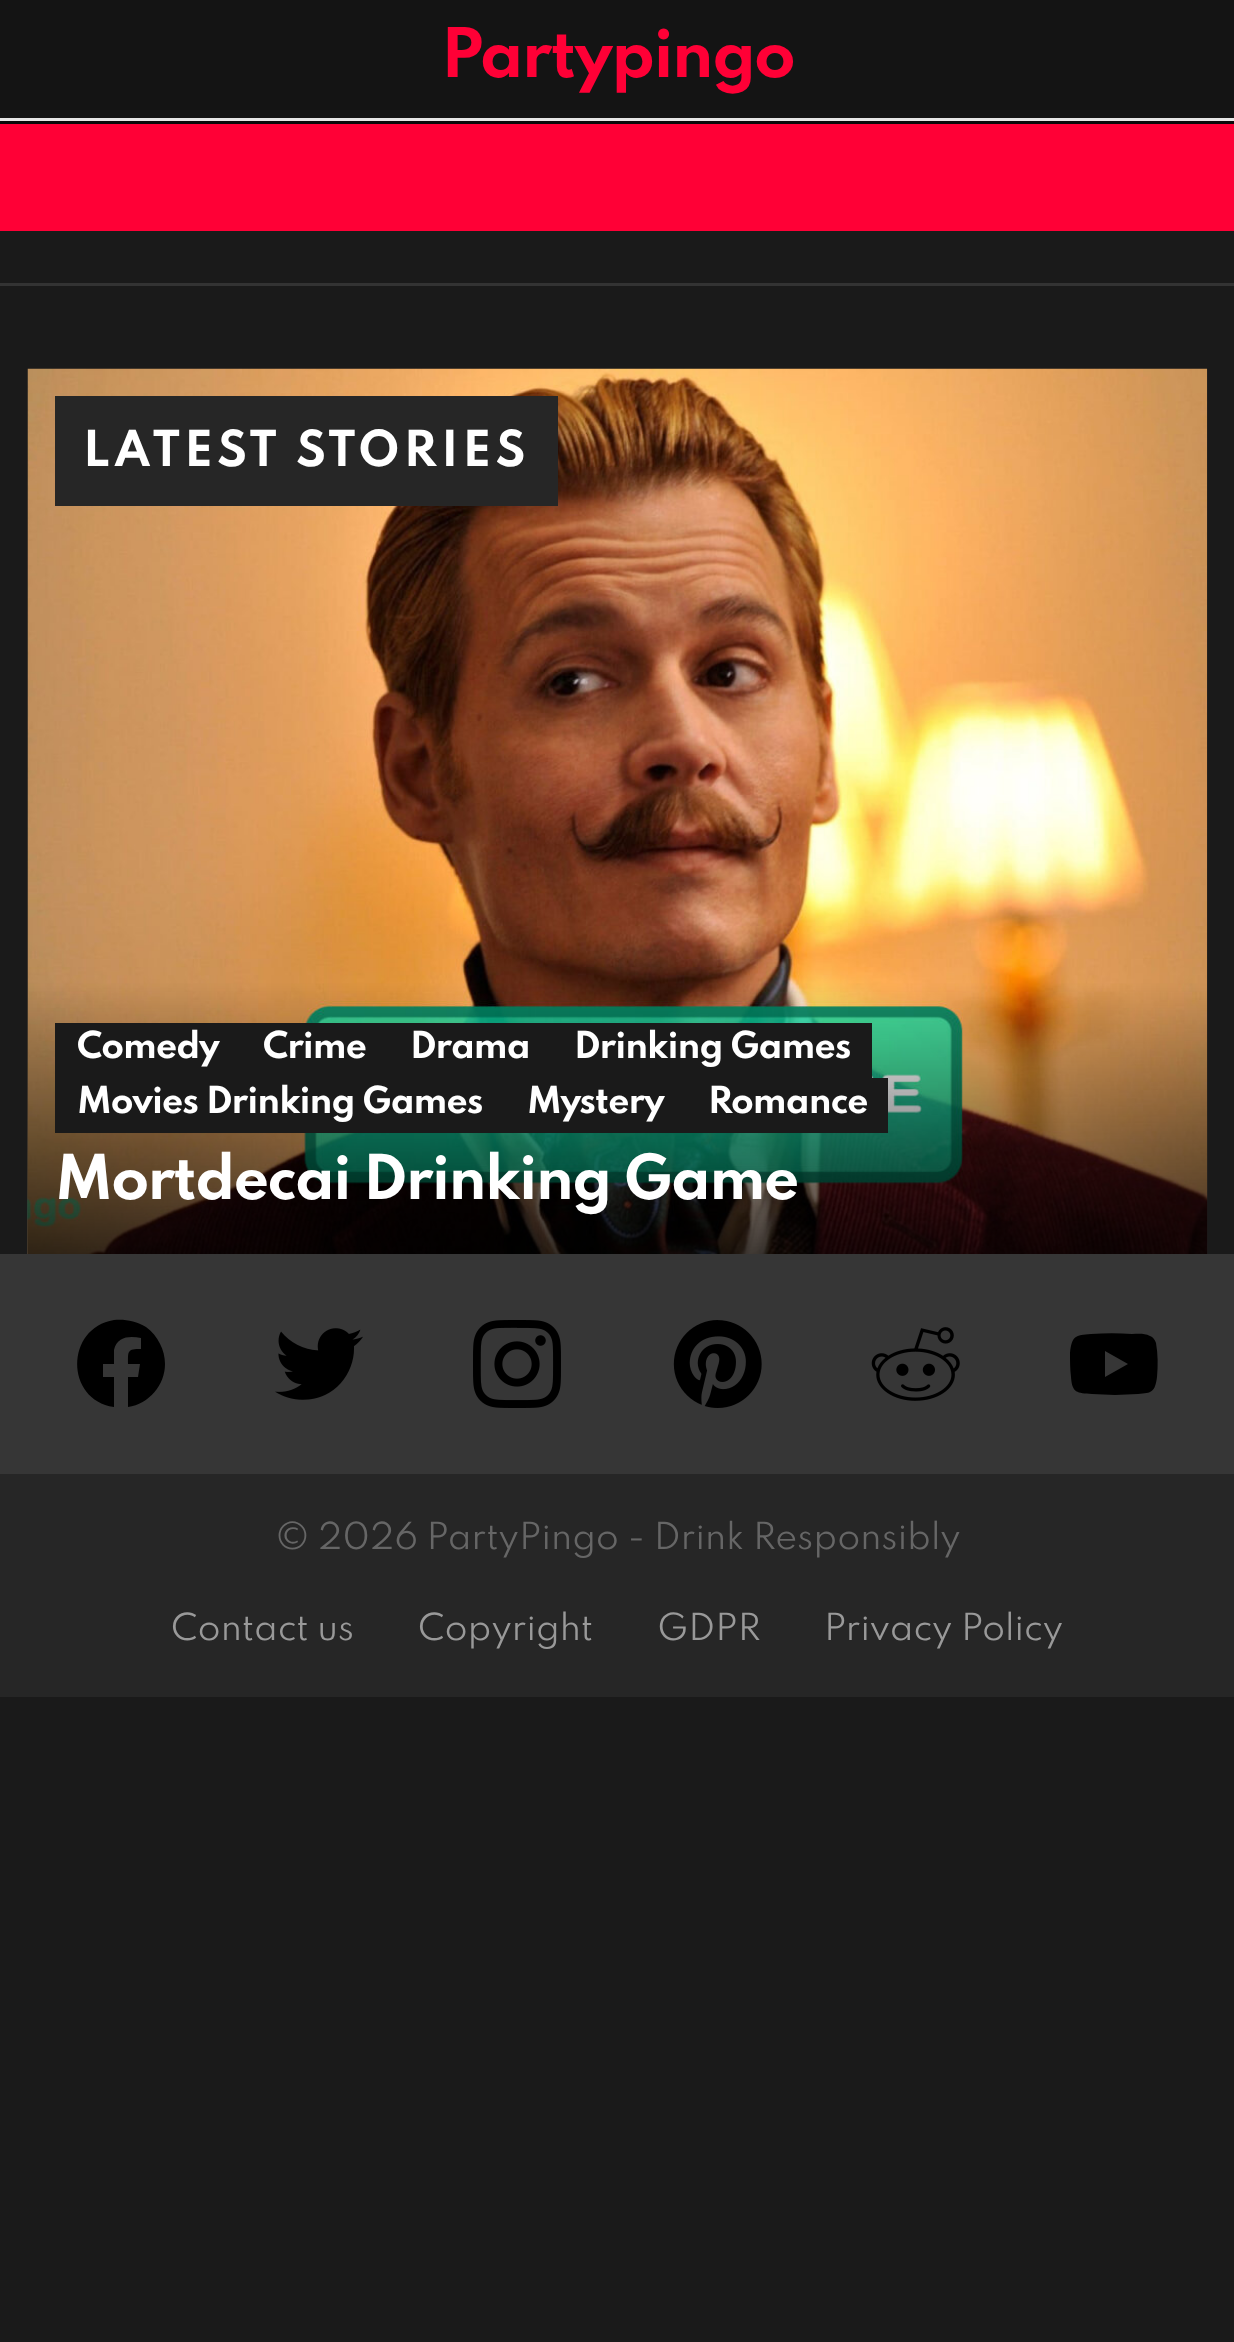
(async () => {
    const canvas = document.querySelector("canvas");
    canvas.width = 1234;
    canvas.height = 2342;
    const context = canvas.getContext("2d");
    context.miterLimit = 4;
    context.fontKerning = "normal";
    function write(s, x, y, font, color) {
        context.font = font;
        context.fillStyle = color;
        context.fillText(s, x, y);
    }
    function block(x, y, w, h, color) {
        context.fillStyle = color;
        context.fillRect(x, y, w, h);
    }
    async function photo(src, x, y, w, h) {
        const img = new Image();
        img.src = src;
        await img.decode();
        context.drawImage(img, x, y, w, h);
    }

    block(0, 0, 1234, 2342, "rgb(26, 26, 26)");
    block(0, 0, 1234, 118, "rgb(20, 20, 20)");
    block(0, 118, 1234, 3, "rgb(230, 230, 230)");
    context.letterSpacing = "-1.75px";
    write("Partypingo", 441, 77, "bold 60.5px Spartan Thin", "rgb(255, 0, 54)");
    block(0, 121, 1234, 3, "rgb(10, 10, 10)");
    block(0, 124, 1234, 107, "rgb(255, 0, 54)");
    block(0, 283, 1234, 3, "rgb(51, 51, 51)");
    await photo("media/1.png", 27, 368, 1181, 886);
    block(55, 396, 503, 110, "rgb(38, 38, 38)");
    context.letterSpacing = "4.25px";
    write("LATEST STORIES", 83, 466, "bold 44px Spartan Thin", "rgb(255, 255, 255)");
    block(55, 1023, 817, 55, "rgb(26, 26, 26)");
    context.letterSpacing = "-1px";
    write("Comedy", 77, 1058, "bold 33px Spartan Thin", "rgb(255, 255, 255)");
    write("Crime", 263, 1058, "bold 33px Spartan Thin", "rgb(255, 255, 255)");
    write("Drama", 410, 1058, "bold 33px Spartan Thin", "rgb(255, 255, 255)");
    write("Drinking Games", 574, 1058, "bold 33px Spartan Thin", "rgb(255, 255, 255)");
    block(55, 1078, 833, 55, "rgb(26, 26, 26)");
    write("Movies Drinking Games", 77, 1113, "bold 33px Spartan Thin", "rgb(255, 255, 255)");
    write("Mystery", 527, 1113, "bold 33px Spartan Thin", "rgb(255, 255, 255)");
    write("Romance", 708, 1113, "bold 33px Spartan Thin", "rgb(255, 255, 255)");
    context.letterSpacing = "-1.65px";
    write("Mortdecai Drinking Game", 55, 1199, "bold 55px Spartan Thin", "rgb(255, 255, 255)");
    block(0, 1254, 1234, 220, "rgb(54, 54, 54)");
    context.fillStyle = "rgb(0, 0, 0)";
    context.beginPath();
    context.moveTo(165, 1364);
    context.bezierCurveTo(165, 1350, 158, 1336, 146, 1327);
    context.bezierCurveTo(136, 1321, 125, 1319, 114, 1320);
    context.bezierCurveTo(65, 1328, 65, 1400, 114, 1407);
    context.lineTo(114, 1377);
    context.lineTo(103, 1377);
    context.lineTo(103, 1364);
    context.lineTo(114, 1364);
    context.lineTo(114, 1350);
    context.bezierCurveTo(117, 1336, 130, 1336, 141, 1338);
    context.lineTo(141, 1349);
    context.bezierCurveTo(127, 1349, 128, 1351, 128, 1364);
    context.lineTo(140, 1364);
    context.lineTo(138, 1377);
    context.lineTo(128, 1377);
    context.lineTo(128, 1407);
    context.bezierCurveTo(149, 1404, 165, 1385, 165, 1364);
    context.closePath();
    context.fill();
    await photo("media/2.png", 275, 1328, 88, 72);
    await photo("media/3.png", 473, 1320, 88, 88);
    await photo("media/4.png", 673, 1320, 89, 88);
    await photo("media/5.png", 871, 1327, 89, 74);
    context.beginPath();
    context.moveTo(1156, 1343);
    context.bezierCurveTo(1155, 1340, 1153, 1337, 1150, 1336);
    context.bezierCurveTo(1144, 1333, 1138, 1334, 1132, 1334);
    context.bezierCurveTo(1119, 1333, 1105, 1333, 1091, 1334);
    context.bezierCurveTo(1075, 1335, 1072, 1336, 1070, 1353);
    context.bezierCurveTo(1070, 1361, 1070, 1369, 1071, 1377);
    context.bezierCurveTo(1072, 1393, 1077, 1393, 1092, 1394);
    context.lineTo(1115, 1395);
    context.lineTo(1138, 1394);
    context.bezierCurveTo(1152, 1393, 1155, 1392, 1157, 1377);
    context.bezierCurveTo(1158, 1366, 1158, 1354, 1156, 1343);
    context.closePath();
    context.moveTo(1105, 1377);
    context.lineTo(1105, 1351);
    context.lineTo(1128, 1364);
    context.closePath();
    context.fill();
    block(0, 1474, 1234, 223, "rgb(38, 38, 38)");
    context.letterSpacing = "0px";
    write("© 2026 PartyPingo - Drink Responsibly", 275, 1549, "33px Spartan Thin", "rgb(102, 102, 102)");
    write("Contact us", 171, 1640, "33px Spartan Thin", "rgb(153, 153, 153)");
    write("Copyright", 418, 1640, "33px Spartan Thin", "rgb(153, 153, 153)");
    write("GDPR", 657, 1640, "33px Spartan Thin", "rgb(153, 153, 153)");
    write("Privacy Policy", 824, 1640, "33px Spartan Thin", "rgb(153, 153, 153)");
})();
